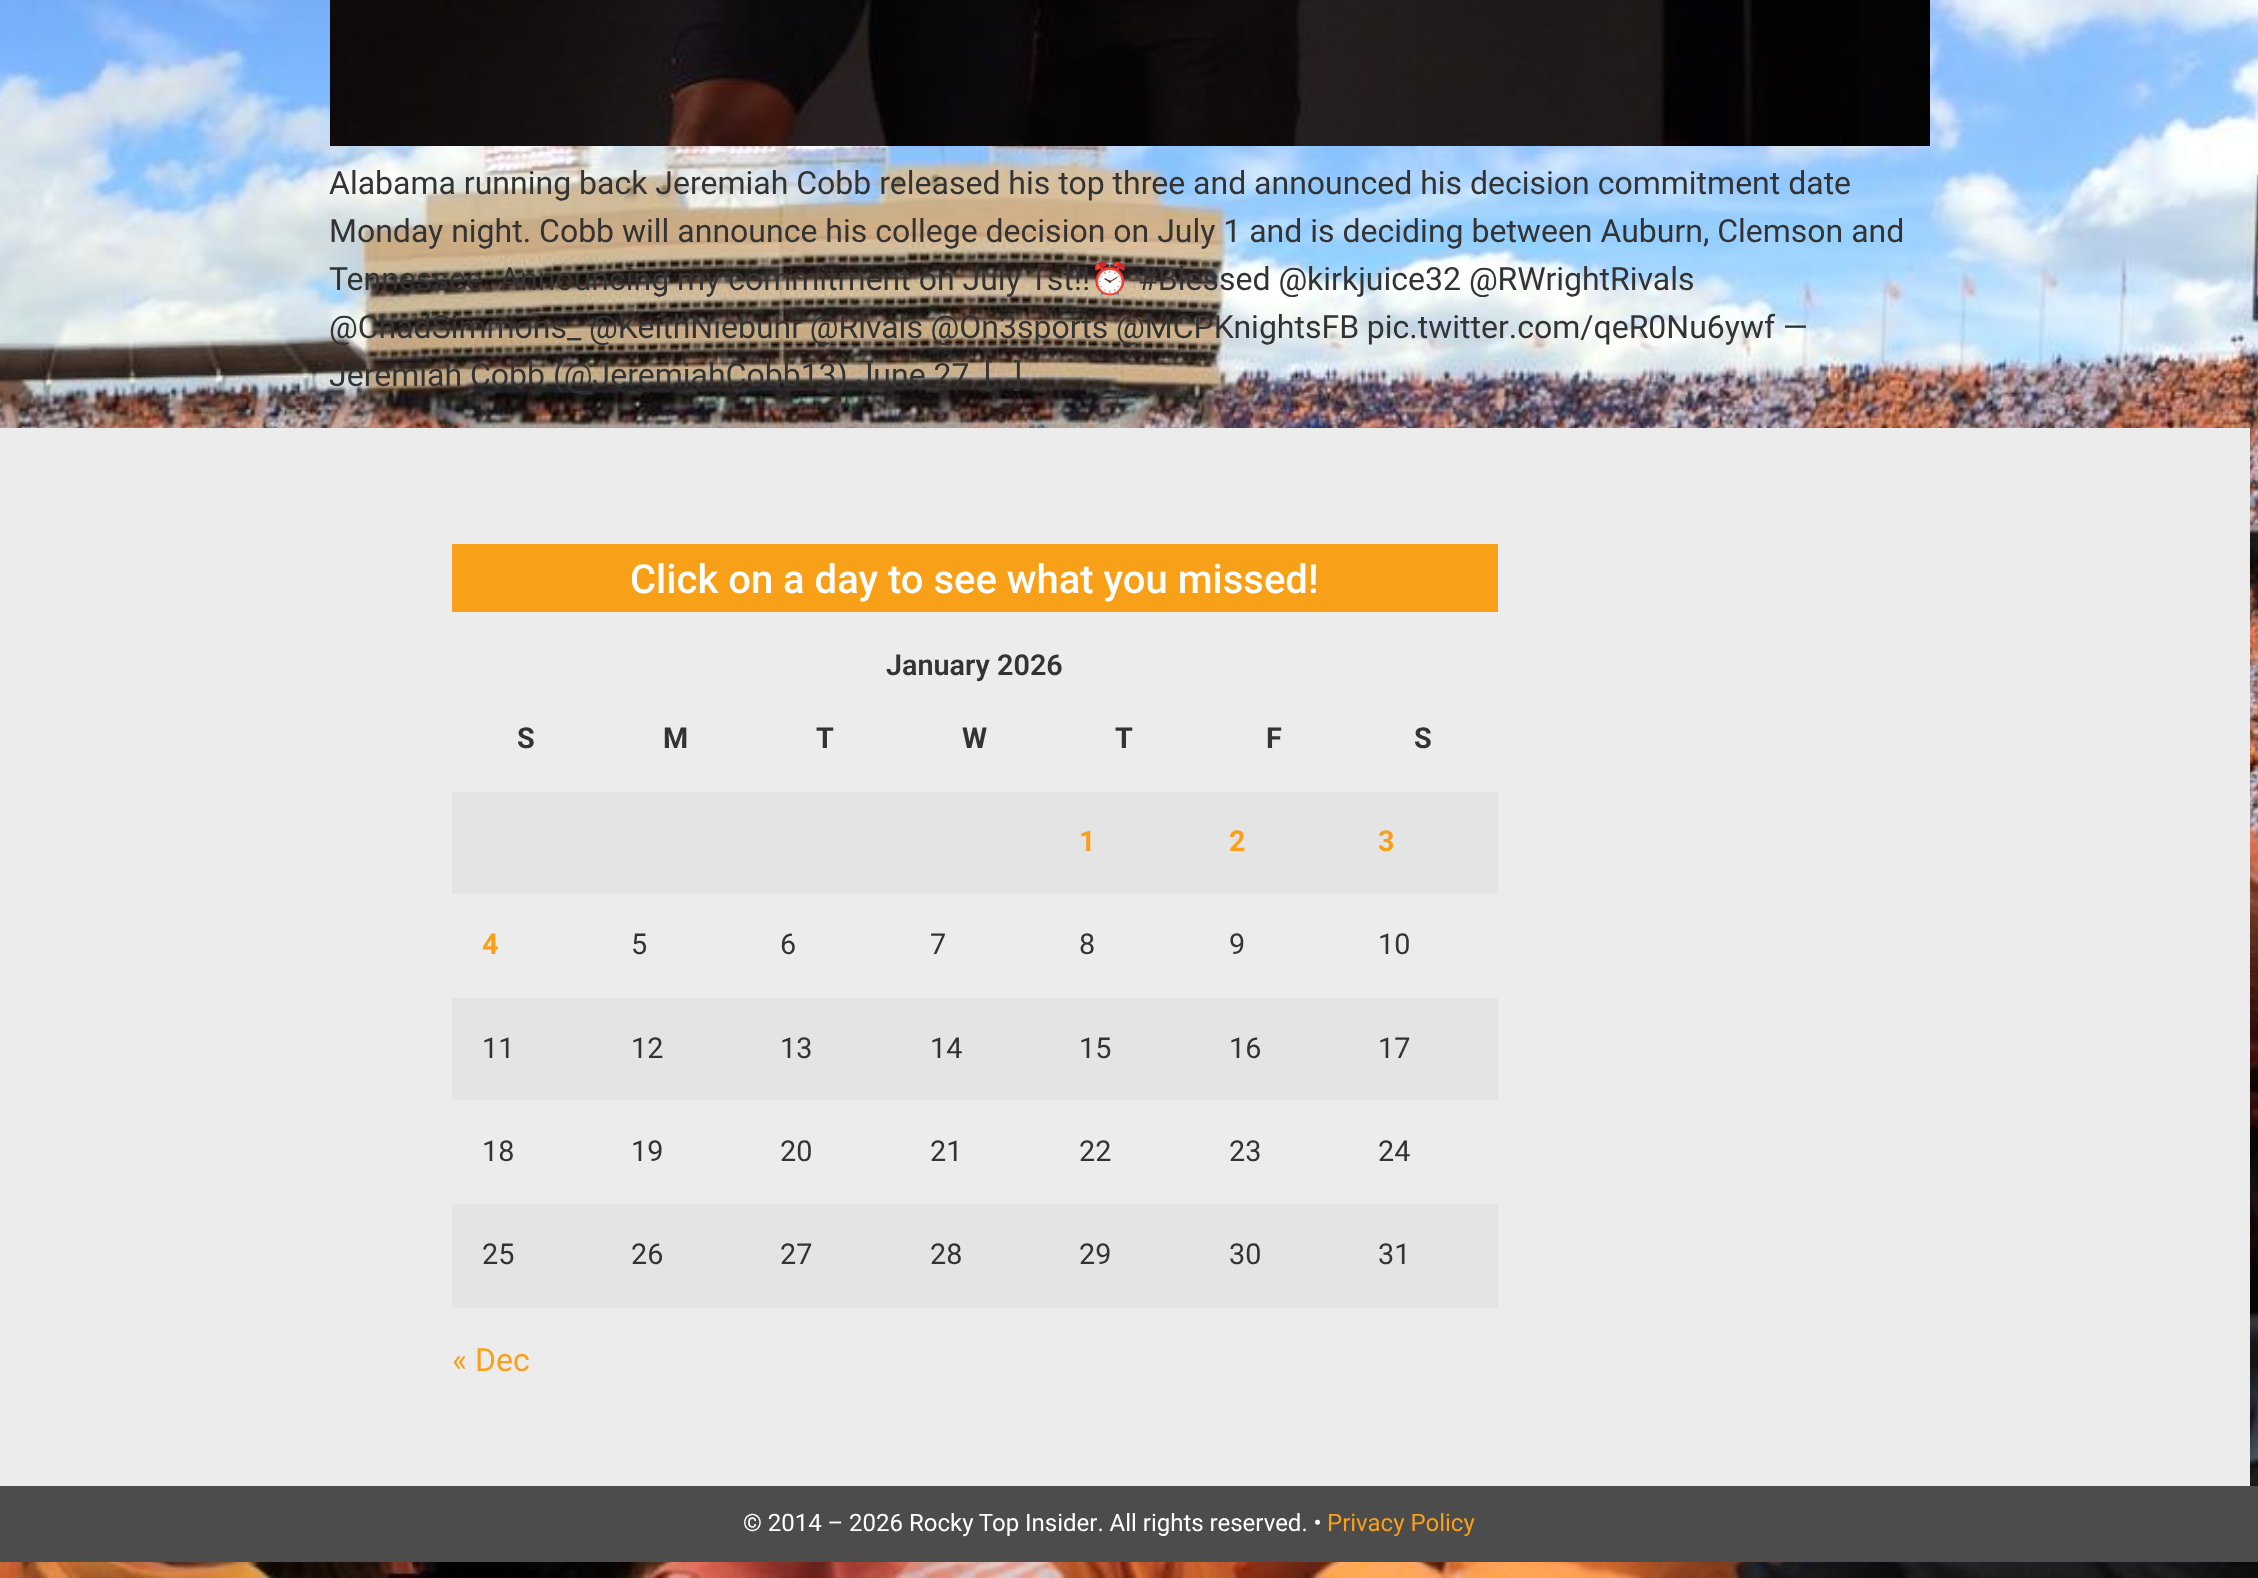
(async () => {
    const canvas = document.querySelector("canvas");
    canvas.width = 2258;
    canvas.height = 1578;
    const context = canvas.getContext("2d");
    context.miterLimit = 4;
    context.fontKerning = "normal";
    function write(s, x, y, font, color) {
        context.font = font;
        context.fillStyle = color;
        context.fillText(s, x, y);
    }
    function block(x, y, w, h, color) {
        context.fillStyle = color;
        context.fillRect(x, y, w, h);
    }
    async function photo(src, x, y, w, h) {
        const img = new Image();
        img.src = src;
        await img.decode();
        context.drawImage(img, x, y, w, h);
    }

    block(0, 0, 2258, 1578, "rgb(255, 255, 255)");
    await photo("media/1.png", 0, 0, 2258, 1578);
    await photo("media/2.png", 330, 0, 1600, 146);
    write("Alabama running back Jeremiah Cobb released his top three and announced his decision commitment date", 329, 194, "32px Roboto", "rgb(51, 51, 51)");
    write("Monday night. Cobb will announce his college decision on July 1 and is deciding between Auburn, Clemson and", 329, 242, "32px Roboto", "rgb(51, 51, 51)");
    write("Tennessee. Announcing my commitment on July 1st!!", 329, 290, "32px Roboto", "rgb(51, 51, 51)");
    write("⏰", 1090, 290, "32px Noto Color Emoji", "rgb(51, 51, 51)");
    write("#Blessed @kirkjuice32 @RWrightRivals", 1138, 290, "32px Roboto", "rgb(51, 51, 51)");
    context.wordSpacing = "-0.25px";
    write("@ChadSimmons_ @KeithNiebuhr @Rivals @On3sports @MCPKnightsFB pic.twitter.com/qeR0Nu6ywf —", 329, 338, "32px Roboto", "rgb(51, 51, 51)");
    context.wordSpacing = "0px";
    write("Jeremiah Cobb (@JeremiahCobb13) June 27, […]", 329, 386, "32px Roboto", "rgb(51, 51, 51)");
    block(0, 428, 2250, 1058, "rgb(236, 236, 236)");
    block(452, 544, 1046, 68, "rgb(249, 160, 25)");
    write("Click on a day to see what you missed!", 630, 593, "500 40px Roboto", "rgb(255, 255, 255)");
    write("January 2026", 886, 675, "600 28.75px Roboto", "rgb(51, 51, 51)");
    write("S", 517, 748, "bold 28.75px Roboto", "rgb(51, 51, 51)");
    write("M", 663, 748, "bold 28.75px Roboto", "rgb(51, 51, 51)");
    write("T", 816, 748, "bold 28.75px Roboto", "rgb(51, 51, 51)");
    write("W", 962, 748, "bold 28.75px Roboto", "rgb(51, 51, 51)");
    write("T", 1115, 748, "bold 28.75px Roboto", "rgb(51, 51, 51)");
    write("F", 1266, 748, "bold 28.75px Roboto", "rgb(51, 51, 51)");
    write("S", 1414, 748, "bold 28.75px Roboto", "rgb(51, 51, 51)");
    block(452, 792, 1046, 102, "rgb(228, 228, 228)");
    write("1", 1079, 851, "bold 28.75px Roboto", "rgb(249, 160, 25)");
    write("2", 1229, 851, "bold 28.75px Roboto", "rgb(249, 160, 25)");
    write("3", 1378, 851, "bold 28.75px Roboto", "rgb(249, 160, 25)");
    write("4", 482, 954, "bold 28.75px Roboto", "rgb(249, 160, 25)");
    write("5", 631, 954, "28.75px Roboto", "rgb(51, 51, 51)");
    write("6", 780, 954, "28.75px Roboto", "rgb(51, 51, 51)");
    write("7", 930, 954, "28.75px Roboto", "rgb(51, 51, 51)");
    write("8", 1079, 954, "28.75px Roboto", "rgb(51, 51, 51)");
    write("9", 1229, 954, "28.75px Roboto", "rgb(51, 51, 51)");
    write("10", 1378, 954, "28.75px Roboto", "rgb(51, 51, 51)");
    block(452, 998, 1046, 102, "rgb(228, 228, 228)");
    write("11", 482, 1058, "28.75px Roboto", "rgb(51, 51, 51)");
    write("12", 631, 1058, "28.75px Roboto", "rgb(51, 51, 51)");
    write("13", 780, 1058, "28.75px Roboto", "rgb(51, 51, 51)");
    write("14", 930, 1058, "28.75px Roboto", "rgb(51, 51, 51)");
    write("15", 1079, 1058, "28.75px Roboto", "rgb(51, 51, 51)");
    write("16", 1229, 1058, "28.75px Roboto", "rgb(51, 51, 51)");
    write("17", 1378, 1058, "28.75px Roboto", "rgb(51, 51, 51)");
    write("18", 482, 1161, "28.75px Roboto", "rgb(51, 51, 51)");
    write("19", 631, 1161, "28.75px Roboto", "rgb(51, 51, 51)");
    write("20", 780, 1161, "28.75px Roboto", "rgb(51, 51, 51)");
    write("21", 930, 1161, "28.75px Roboto", "rgb(51, 51, 51)");
    write("22", 1079, 1161, "28.75px Roboto", "rgb(51, 51, 51)");
    write("23", 1229, 1161, "28.75px Roboto", "rgb(51, 51, 51)");
    write("24", 1378, 1161, "28.75px Roboto", "rgb(51, 51, 51)");
    block(452, 1204, 1046, 104, "rgb(228, 228, 228)");
    write("25", 482, 1264, "28.75px Roboto", "rgb(51, 51, 51)");
    write("26", 631, 1264, "28.75px Roboto", "rgb(51, 51, 51)");
    write("27", 780, 1264, "28.75px Roboto", "rgb(51, 51, 51)");
    write("28", 930, 1264, "28.75px Roboto", "rgb(51, 51, 51)");
    write("29", 1079, 1264, "28.75px Roboto", "rgb(51, 51, 51)");
    write("30", 1229, 1264, "28.75px Roboto", "rgb(51, 51, 51)");
    write("31", 1378, 1264, "28.75px Roboto", "rgb(51, 51, 51)");
    write("« Dec", 452, 1371, "32px Roboto", "rgb(249, 160, 25)");
    block(0, 1486, 2258, 76, "rgb(76, 76, 76)");
    context.wordSpacing = "-0.1px";
    write("© 2014 – 2026 Rocky Top Insider. All rights reserved. •", 743, 1531, "24px Roboto", "rgb(255, 255, 255)");
    context.wordSpacing = "0px";
    write("Privacy Policy", 1327, 1531, "24px Roboto", "rgb(249, 160, 25)");
})();
